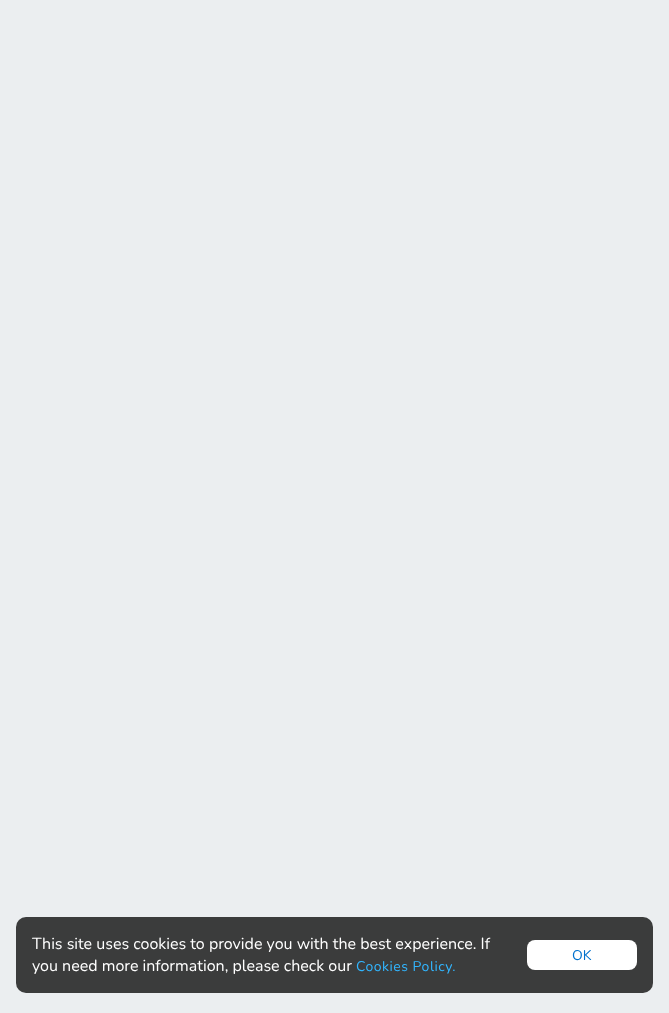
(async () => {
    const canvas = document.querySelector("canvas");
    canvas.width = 669;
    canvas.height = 1013;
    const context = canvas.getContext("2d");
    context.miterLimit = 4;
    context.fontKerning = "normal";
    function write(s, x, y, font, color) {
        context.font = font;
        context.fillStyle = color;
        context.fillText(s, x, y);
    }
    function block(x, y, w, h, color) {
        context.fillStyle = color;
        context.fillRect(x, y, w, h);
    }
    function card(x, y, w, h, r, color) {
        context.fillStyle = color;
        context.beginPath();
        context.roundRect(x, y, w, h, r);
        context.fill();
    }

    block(0, 0, 669, 1013, "rgb(235, 238, 240)");
    card(16, 917, 637, 76, 10, "rgb(59, 60, 60)");
    write("This site uses cookies to provide you with the best experience. If", 32, 949, "200 16px Nunito", "rgb(255, 255, 255)");
    write("you need more information, please check our", 32, 971, "200 16px Nunito", "rgb(255, 255, 255)");
    context.letterSpacing = "0.5px";
    write("Cookies Policy.", 356, 971, "200 14px Nunito", "rgb(50, 182, 255)");
    card(527, 940, 110, 30, 8, "rgb(255, 255, 255)");
    context.letterSpacing = "0px";
    write("OK", 572, 960, "200 14px Nunito", "rgb(0, 113, 205)");
})();
